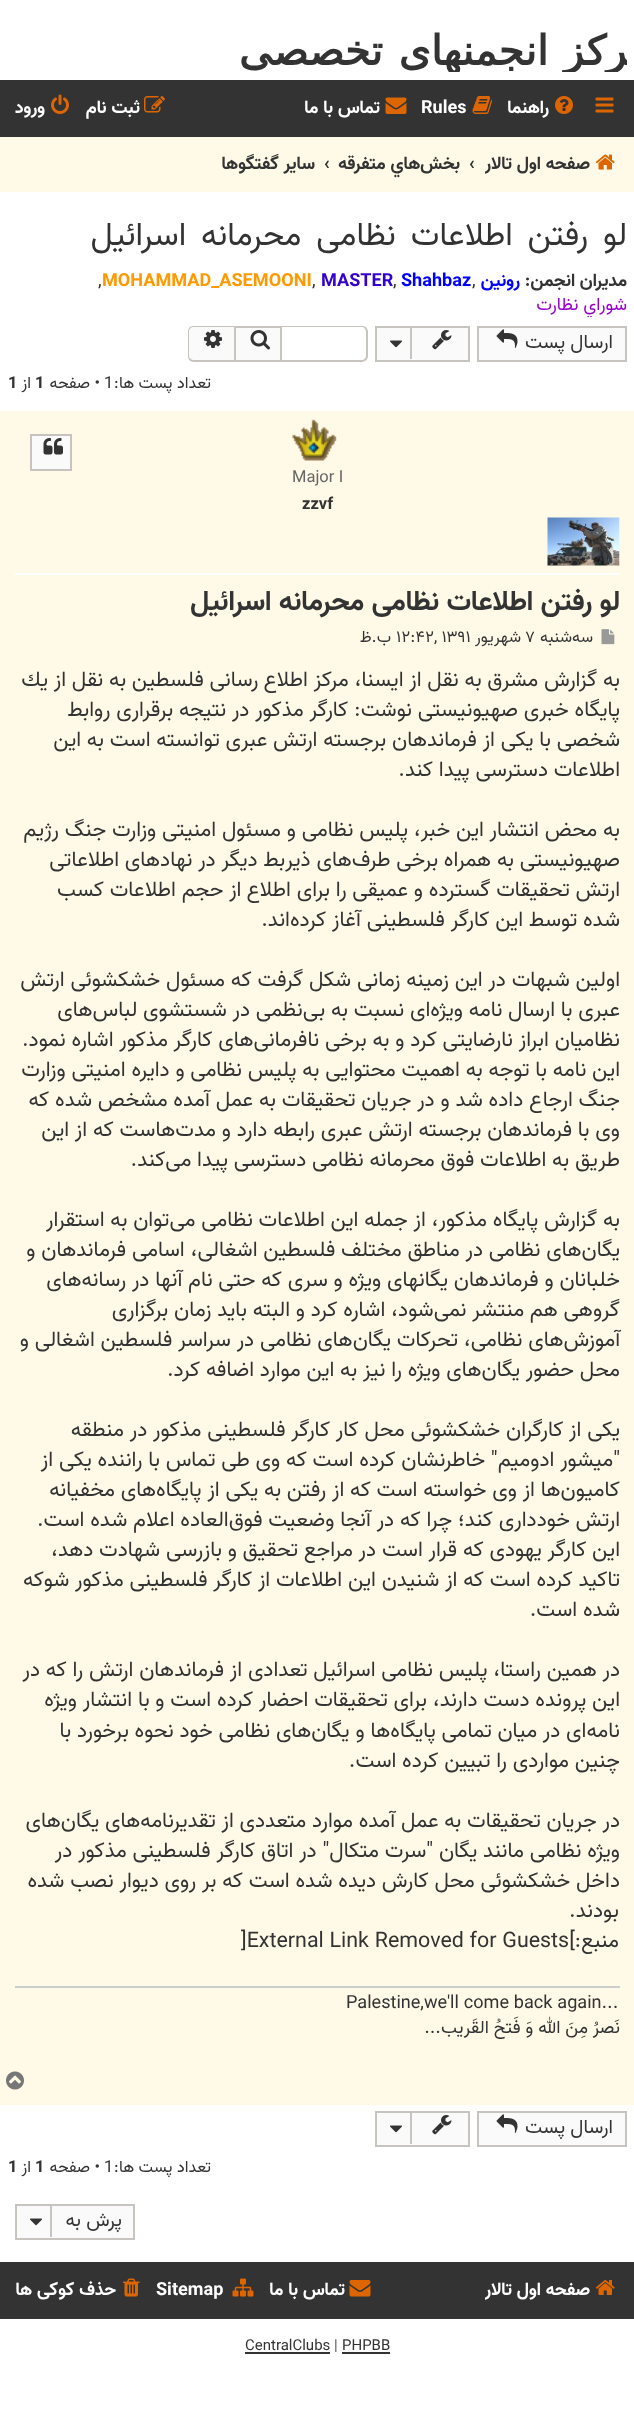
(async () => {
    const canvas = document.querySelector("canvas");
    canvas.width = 634;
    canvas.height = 2423;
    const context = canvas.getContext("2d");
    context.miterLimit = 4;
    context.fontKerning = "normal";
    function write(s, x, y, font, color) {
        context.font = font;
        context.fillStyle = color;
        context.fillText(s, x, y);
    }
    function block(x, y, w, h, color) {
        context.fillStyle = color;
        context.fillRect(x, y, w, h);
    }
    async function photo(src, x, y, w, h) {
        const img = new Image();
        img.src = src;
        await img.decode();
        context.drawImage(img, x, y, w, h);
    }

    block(0, 0, 634, 2423, "rgb(255, 255, 255)");
    context.save();
    context.beginPath();
    context.rect(213, 23, 414, 49);
    context.clip();
    context.letterSpacing = "1.5px";
    context.wordSpacing = "1px";
    context.direction = "rtl";
    write("مرکز انجمنهای تخصصی", 651, 65, "bold 41.25px DejaVu Sans", "rgb(51, 51, 51)");
    context.restore();
    block(0, 80, 634, 57, "rgb(51, 51, 51)");
    await photo("media/1.png", 595, 97, 19, 16);
    await photo("media/2.png", 555, 96, 18, 18);
    context.direction = "rtl";
    write("راهنما", 549, 113, "bold 18.1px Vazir", "rgb(255, 255, 255)");
    await photo("media/3.png", 472, 96, 20, 18);
    context.direction = "ltr";
    write("Rules", 421, 113, "bold 18.1px Vazir", "rgb(255, 255, 255)");
    await photo("media/4.png", 385, 97, 22, 17);
    context.direction = "rtl";
    write("تماس با ما", 380, 113, "bold 18.1px Vazir", "rgb(255, 255, 255)");
    await photo("media/5.png", 144, 96, 21, 17);
    write("ثبت نام", 140, 113, "bold 18.1px Vazir", "rgb(255, 255, 255)");
    await photo("media/6.png", 51, 94, 18, 20);
    write("ورود", 45, 113, "bold 18.1px Vazir", "rgb(255, 255, 255)");
    block(0, 137, 634, 55, "rgb(255, 249, 231)");
    await photo("media/7.png", 595, 154, 20, 16);
    context.save();
    context.beginPath();
    context.rect(485, 146, 135, 39);
    context.clip();
    write("صفحه اول تالار", 590, 169, "bold 18.1px Vazir", "rgb(51, 51, 51)");
    context.restore();
    context.direction = "ltr";
    write("‹", 469, 169, "bold 18.1px Vazir", "rgb(51, 51, 51)");
    context.direction = "rtl";
    write("بخش‌‌هاي متفرقه", 460, 169, "bold 18.1px Vazir", "rgb(51, 51, 51)");
    context.direction = "ltr";
    write("‹", 324, 169, "bold 18.1px Vazir", "rgb(51, 51, 51)");
    context.direction = "rtl";
    write("ساير گفتگوها", 315, 169, "bold 18.1px Vazir", "rgb(51, 51, 51)");
    context.wordSpacing = "6px";
    write("لو رفتن اطلاعات نظامی محرمانه اسرائیل", 627, 245, "33px Vazir", "rgb(51, 51, 51)");
    context.wordSpacing = "0px";
    write("مدیران انجمن:", 627, 286, "bold 18.1px Vazir", "rgb(51, 51, 51)");
    write("رونین", 520, 286, "bold 18.1px Vazir", "rgb(0, 0, 255)");
    context.direction = "ltr";
    write(",", 472, 286, "18.1px Vazir", "rgb(51, 51, 51)");
    write("Shahbaz", 401, 286, "bold 18.1px Vazir", "rgb(0, 0, 255)");
    write(",", 393, 286, "18.1px Vazir", "rgb(51, 51, 51)");
    write("MASTER", 321, 286, "bold 18.1px Vazir", "rgb(51, 0, 204)");
    write(",", 312, 286, "18.1px Vazir", "rgb(51, 51, 51)");
    write("MOHAMMAD_ASEMOONI", 102, 286, "bold 18.1px Vazir", "rgb(255, 153, 0)");
    write(",", 98, 286, "18.1px Vazir", "rgb(51, 51, 51)");
    context.save();
    context.beginPath();
    context.rect(8, 270, 619, 47);
    context.clip();
    context.direction = "rtl";
    write("شوراي نظارت", 627, 310, "18.1px Vazir", "rgb(153, 0, 204)");
    context.restore();
    context.fillStyle = "rgb(250, 250, 250)";
    context.beginPath();
    context.rect(478, 327, 148, 34);
    context.fill();
    context.strokeStyle = "rgb(199, 195, 191)";
    context.lineWidth = 2;
    context.stroke();
    context.direction = "rtl";
    write("ارسال پست", 613, 348, "19.5px Vazir", "rgb(51, 51, 51)");
    await photo("media/8.png", 496, 329, 22, 19);
    context.fillStyle = "rgb(250, 250, 250)";
    context.beginPath();
    context.rect(376, 327, 93, 34);
    context.fill();
    context.stroke();
    await photo("media/9.png", 432, 330, 20, 20);
    block(410, 327, 2, 32, "rgb(199, 195, 191)");
    await photo("media/10.png", 390, 340, 12, 8);
    context.beginPath();
    context.moveTo(282, 326);
    context.lineTo(362, 326);
    context.bezierCurveTo(365, 326, 368, 328, 368, 332);
    context.lineTo(368, 356);
    context.bezierCurveTo(368, 359, 365, 362, 362, 362);
    context.lineTo(282, 362);
    context.closePath();
    context.moveTo(282, 327);
    context.lineTo(362, 327);
    context.bezierCurveTo(364, 327, 366, 329, 366, 332);
    context.lineTo(366, 356);
    context.bezierCurveTo(366, 358, 364, 360, 362, 360);
    context.lineTo(282, 360);
    context.closePath();
    context.fill("evenodd");
    context.fillStyle = "rgb(250, 250, 250)";
    context.beginPath();
    context.rect(235, 327, 46, 34);
    context.fill();
    context.stroke();
    await photo("media/11.png", 250, 330, 20, 20);
    context.beginPath();
    context.roundRect(189, 327, 45, 33, [5, 0, 0, 5]);
    context.fill();
    context.fillStyle = "rgb(199, 195, 191)";
    context.beginPath();
    context.moveTo(194, 326);
    context.lineTo(234, 326);
    context.lineTo(234, 362);
    context.lineTo(194, 362);
    context.bezierCurveTo(190, 362, 188, 359, 188, 356);
    context.lineTo(188, 332);
    context.bezierCurveTo(188, 328, 190, 326, 194, 326);
    context.closePath();
    context.moveTo(194, 327);
    context.lineTo(234, 327);
    context.lineTo(234, 360);
    context.lineTo(194, 360);
    context.bezierCurveTo(191, 360, 189, 358, 189, 356);
    context.lineTo(189, 332);
    context.bezierCurveTo(189, 329, 191, 327, 194, 327);
    context.closePath();
    context.fill("evenodd");
    await photo("media/12.png", 204, 330, 18, 18);
    write("تعداد پست ها:", 211, 388, "16.5px Vazir", "rgb(51, 51, 51)");
    context.direction = "ltr";
    write("1", 104, 388, "16.5px Vazir", "rgb(51, 51, 51)");
    context.direction = "rtl";
    write("• صفحه", 100, 388, "16.5px Vazir", "rgb(51, 51, 51)");
    context.direction = "ltr";
    write("1", 35, 388, "bold 16.5px Vazir", "rgb(51, 51, 51)");
    context.direction = "rtl";
    write("از", 31, 388, "16.5px Vazir", "rgb(51, 51, 51)");
    context.direction = "ltr";
    write("1", 8, 388, "bold 16.5px Vazir", "rgb(51, 51, 51)");
    block(0, 411, 634, 1694, "rgb(255, 249, 231)");
    block(15, 573, 605, 2, "rgb(255, 255, 255)");
    await photo("media/13.png", 292, 419, 45, 42);
    write("Major I", 292, 482, "16.5px Vazir", "rgb(102, 102, 102)");
    write("zzvf", 302, 509, "bold 16.5px Vazir", "rgb(51, 51, 51)");
    await photo("media/14.png", 547, 517, 73, 49);
    context.fillStyle = "rgb(250, 250, 250)";
    context.beginPath();
    context.rect(31, 435, 40, 35);
    context.fill();
    context.stroke();
    await photo("media/15.png", 43, 438, 20, 17);
    context.direction = "rtl";
    write("لو رفتن اطلاعات نظامی محرمانه اسرائیل", 620, 610, "bold 28px Vazir", "rgb(51, 51, 51)");
    await photo("media/16.png", 601, 629, 14, 16);
    write("سه‌شنبه", 593, 642, "16.5px Vazir", "rgb(51, 51, 51)");
    context.direction = "ltr";
    write("۷", 525, 642, "16.5px Vazir", "rgb(51, 51, 51)");
    context.direction = "rtl";
    write("شهریور", 521, 642, "16.5px Vazir", "rgb(51, 51, 51)");
    context.direction = "ltr";
    write("۱۲:۴۲, ۱۳۹۱", 396, 642, "16.5px Vazir", "rgb(51, 51, 51)");
    context.direction = "rtl";
    write("ب.ظ", 391, 642, "16.5px Vazir", "rgb(51, 51, 51)");
    write("به گزارش مشرق به نقل از ايسنا، مرکز اطلاع رسانی فلسطین به نقل از يك", 620, 686, "21.45px Vazir", "rgb(51, 51, 51)");
    write("پایگاه خبری صهیونیستی نوشت: کارگر مذکور در نتیجه برقراری روابط", 620, 716, "21.45px Vazir", "rgb(51, 51, 51)");
    write("شخصی با یکی از فرماندهان برجسته ارتش عبری توانسته است به این", 620, 746, "21.45px Vazir", "rgb(51, 51, 51)");
    write("اطلاعات دسترسی پیدا کند.", 620, 776, "21.45px Vazir", "rgb(51, 51, 51)");
    write("به محض انتشار این خبر، پلیس نظامی و مسئول امنیتی وزارت جنگ رژیم", 620, 836, "21.45px Vazir", "rgb(51, 51, 51)");
    write("صهیونیستی به همراه برخی طرف‌های ذیربط دیگر در نهادهای اطلاعاتی", 620, 866, "21.45px Vazir", "rgb(51, 51, 51)");
    write("ارتش تحقیقات گسترده و عمیقی را برای اطلاع از حجم اطلاعات کسب", 620, 896, "21.45px Vazir", "rgb(51, 51, 51)");
    write("شده توسط این کارگر فلسطینی آغاز کرده‌اند.", 620, 926, "21.45px Vazir", "rgb(51, 51, 51)");
    write("اولین شبهات در این زمینه زمانی شکل گرفت که مسئول خشکشوئی ارتش", 620, 986, "21.45px Vazir", "rgb(51, 51, 51)");
    write("عبری با ارسال نامه ویژه‌ای نسبت به بی‌نظمی در شستشوی لباس‌های", 620, 1016, "21.45px Vazir", "rgb(51, 51, 51)");
    write("نظامیان ابراز نارضایتی کرد و به برخی نافرمانی‌های کارگر مذکور اشاره نمود.", 620, 1046, "21.45px Vazir", "rgb(51, 51, 51)");
    write("این نامه با توجه به اهمیت محتوایی به پلیس نظامی و دایره امنیتی وزارت", 620, 1076, "21.45px Vazir", "rgb(51, 51, 51)");
    write("جنگ ارجاع داده شد و در جریان تحقیقات به عمل آمده مشخص شده که", 620, 1106, "21.45px Vazir", "rgb(51, 51, 51)");
    write("وی با فرماندهان برجسته ارتش عبری رابطه دارد و مدت‌هاست که از این", 620, 1136, "21.45px Vazir", "rgb(51, 51, 51)");
    write("طریق به اطلاعات فوق محرمانه نظامی دسترسی پیدا می‌کند.", 620, 1166, "21.45px Vazir", "rgb(51, 51, 51)");
    write("به گزارش پایگاه مذكور، از جمله این اطلاعات نظامی می‌توان به استقرار", 620, 1226, "21.45px Vazir", "rgb(51, 51, 51)");
    write("یگان‌های نظامی در مناطق مختلف فلسطین اشغالی، اسامی فرماندهان و", 620, 1256, "21.45px Vazir", "rgb(51, 51, 51)");
    write("خلبانان و فرماندهان یگانهای ویژه و سری که حتی نام آنها در رسانه‌های", 620, 1286, "21.45px Vazir", "rgb(51, 51, 51)");
    write("گروهی هم منتشر نمی‌شود، اشاره کرد و البته باید زمان برگزاری", 620, 1316, "21.45px Vazir", "rgb(51, 51, 51)");
    write("آموزش‌های نظامی، تحرکات یگان‌های نظامی در سراسر فلسطین اشغالی و", 620, 1346, "21.45px Vazir", "rgb(51, 51, 51)");
    write("محل حضور یگان‌های ویژه را نیز به این موارد اضافه کرد.", 620, 1376, "21.45px Vazir", "rgb(51, 51, 51)");
    write("یکی از کارگران خشکشوئی محل کار کارگر فلسطینی مذکور در منطقه", 620, 1436, "21.45px Vazir", "rgb(51, 51, 51)");
    write("\"میشور ادومیم\" خاطرنشان کرده است که وی طی تماس با راننده یکی از", 620, 1466, "21.45px Vazir", "rgb(51, 51, 51)");
    write("کامیون‌ها از وی خواسته است که از رفتن به یکی از پایگاه‌های مخفیانه", 620, 1496, "21.45px Vazir", "rgb(51, 51, 51)");
    write("ارتش خودداری کند؛ چرا که در آنجا وضعیت فوق‌العاده اعلام شده است.", 620, 1526, "21.45px Vazir", "rgb(51, 51, 51)");
    write("این کارگر یهودی که قرار است در مراجع تحقیق و بازرسی شهادت دهد،", 620, 1556, "21.45px Vazir", "rgb(51, 51, 51)");
    write("تاکید کرده است که از شنیدن این اطلاعات از کارگر فلسطینی مذکور شوکه", 620, 1586, "21.45px Vazir", "rgb(51, 51, 51)");
    write("شده است.", 620, 1616, "21.45px Vazir", "rgb(51, 51, 51)");
    write("در همین راستا، پلیس نظامی اسرائیل تعدادی از فرماندهان ارتش را که در", 620, 1676, "21.45px Vazir", "rgb(51, 51, 51)");
    write("این پرونده دست دارند، برای تحقیقات احضار کرده است و با انتشار ویژه", 620, 1706, "21.45px Vazir", "rgb(51, 51, 51)");
    write("نامه‌ای در میان تمامی پایگاه‌ها و یگان‌های نظامی خود نحوه برخورد با", 620, 1737, "21.45px Vazir", "rgb(51, 51, 51)");
    write("چنین مواردی را تبیین کرده است.", 620, 1767, "21.45px Vazir", "rgb(51, 51, 51)");
    write("در جریان تحقیقات به عمل آمده موارد متعددی از تقدیرنامه‌های یگان‌های", 620, 1827, "21.45px Vazir", "rgb(51, 51, 51)");
    write("ویژه نظامی مانند یگان \"سرت متکال\" در اتاق کارگر فلسطینی مذکور در", 620, 1857, "21.45px Vazir", "rgb(51, 51, 51)");
    write("داخل خشکشوئی محل کارش دیده شده است که بر روی دیوار نصب شده", 620, 1887, "21.45px Vazir", "rgb(51, 51, 51)");
    write("بودند.", 619, 1917, "21.45px Vazir", "rgb(51, 51, 51)");
    write("منبع:", 619, 1947, "21.45px Vazir", "rgb(51, 51, 51)");
    context.direction = "ltr";
    write("]External Link Removed for Guests[", 241, 1947, "21.45px Vazir", "rgb(51, 51, 51)");
    block(15, 1986, 605, 2, "rgb(204, 204, 204)");
    write("Palestine,we'll come back again...", 346, 2008, "18.1px Vazir", "rgb(51, 51, 51)");
    context.direction = "rtl";
    write("نَصرُ مِنَ الله وَ فَتحُ القَریب...", 620, 2033, "18.1px Vazir", "rgb(51, 51, 51)");
    await photo("media/17.png", 6, 2071, 18, 19);
    context.fillStyle = "rgb(250, 250, 250)";
    context.beginPath();
    context.rect(478, 2112, 148, 34);
    context.fill();
    context.stroke();
    write("ارسال پست", 613, 2133, "19.5px Vazir", "rgb(51, 51, 51)");
    await photo("media/8.png", 496, 2114, 22, 19);
    context.fillStyle = "rgb(250, 250, 250)";
    context.beginPath();
    context.rect(376, 2112, 93, 34);
    context.fill();
    context.stroke();
    await photo("media/9.png", 432, 2115, 20, 20);
    block(410, 2112, 2, 32, "rgb(199, 195, 191)");
    await photo("media/10.png", 390, 2125, 12, 8);
    write("تعداد پست ها:", 211, 2172, "16.5px Vazir", "rgb(51, 51, 51)");
    context.direction = "ltr";
    write("1", 104, 2172, "16.5px Vazir", "rgb(51, 51, 51)");
    context.direction = "rtl";
    write("• صفحه", 100, 2172, "16.5px Vazir", "rgb(51, 51, 51)");
    context.direction = "ltr";
    write("1", 35, 2172, "bold 16.5px Vazir", "rgb(51, 51, 51)");
    context.direction = "rtl";
    write("از", 31, 2172, "16.5px Vazir", "rgb(51, 51, 51)");
    context.direction = "ltr";
    write("1", 8, 2172, "bold 16.5px Vazir", "rgb(51, 51, 51)");
    context.fillStyle = "rgb(250, 250, 250)";
    context.beginPath();
    context.rect(16, 2205, 118, 34);
    context.fill();
    context.stroke();
    context.direction = "rtl";
    write("پرش به", 122, 2226, "19.5px Vazir", "rgb(51, 51, 51)");
    block(50, 2205, 2, 32, "rgb(199, 195, 191)");
    await photo("media/10.png", 30, 2218, 12, 8);
    block(0, 2262, 634, 57, "rgb(51, 51, 51)");
    await photo("media/18.png", 595, 2280, 20, 15);
    context.save();
    context.beginPath();
    context.rect(485, 2271, 135, 41);
    context.clip();
    write("صفحه اول تالار", 590, 2295, "bold 18.1px Vazir", "rgb(255, 255, 255)");
    context.restore();
    await photo("media/19.png", 349, 2280, 22, 17);
    write("تماس با ما", 345, 2295, "bold 18.1px Vazir", "rgb(255, 255, 255)");
    await photo("media/20.png", 232, 2278, 22, 19);
    context.direction = "ltr";
    write("Sitemap", 156, 2295, "bold 18.1px Vazir", "rgb(255, 255, 255)");
    await photo("media/21.png", 123, 2278, 17, 19);
    context.direction = "rtl";
    write("حذف کوکی ها", 116, 2295, "bold 18.1px Vazir", "rgb(255, 255, 255)");
    context.direction = "ltr";
    write("PHPBB", 342, 2350, "15px Vazir", "rgb(51, 51, 51)");
    block(342, 2352, 48, 2, "rgb(51, 51, 51)");
    write("|", 334, 2350, "15px Vazir", "rgb(85, 85, 85)");
    write("CentralClubs", 245, 2350, "15px Vazir", "rgb(51, 51, 51)");
    block(245, 2352, 85, 2, "rgb(51, 51, 51)");
})();
